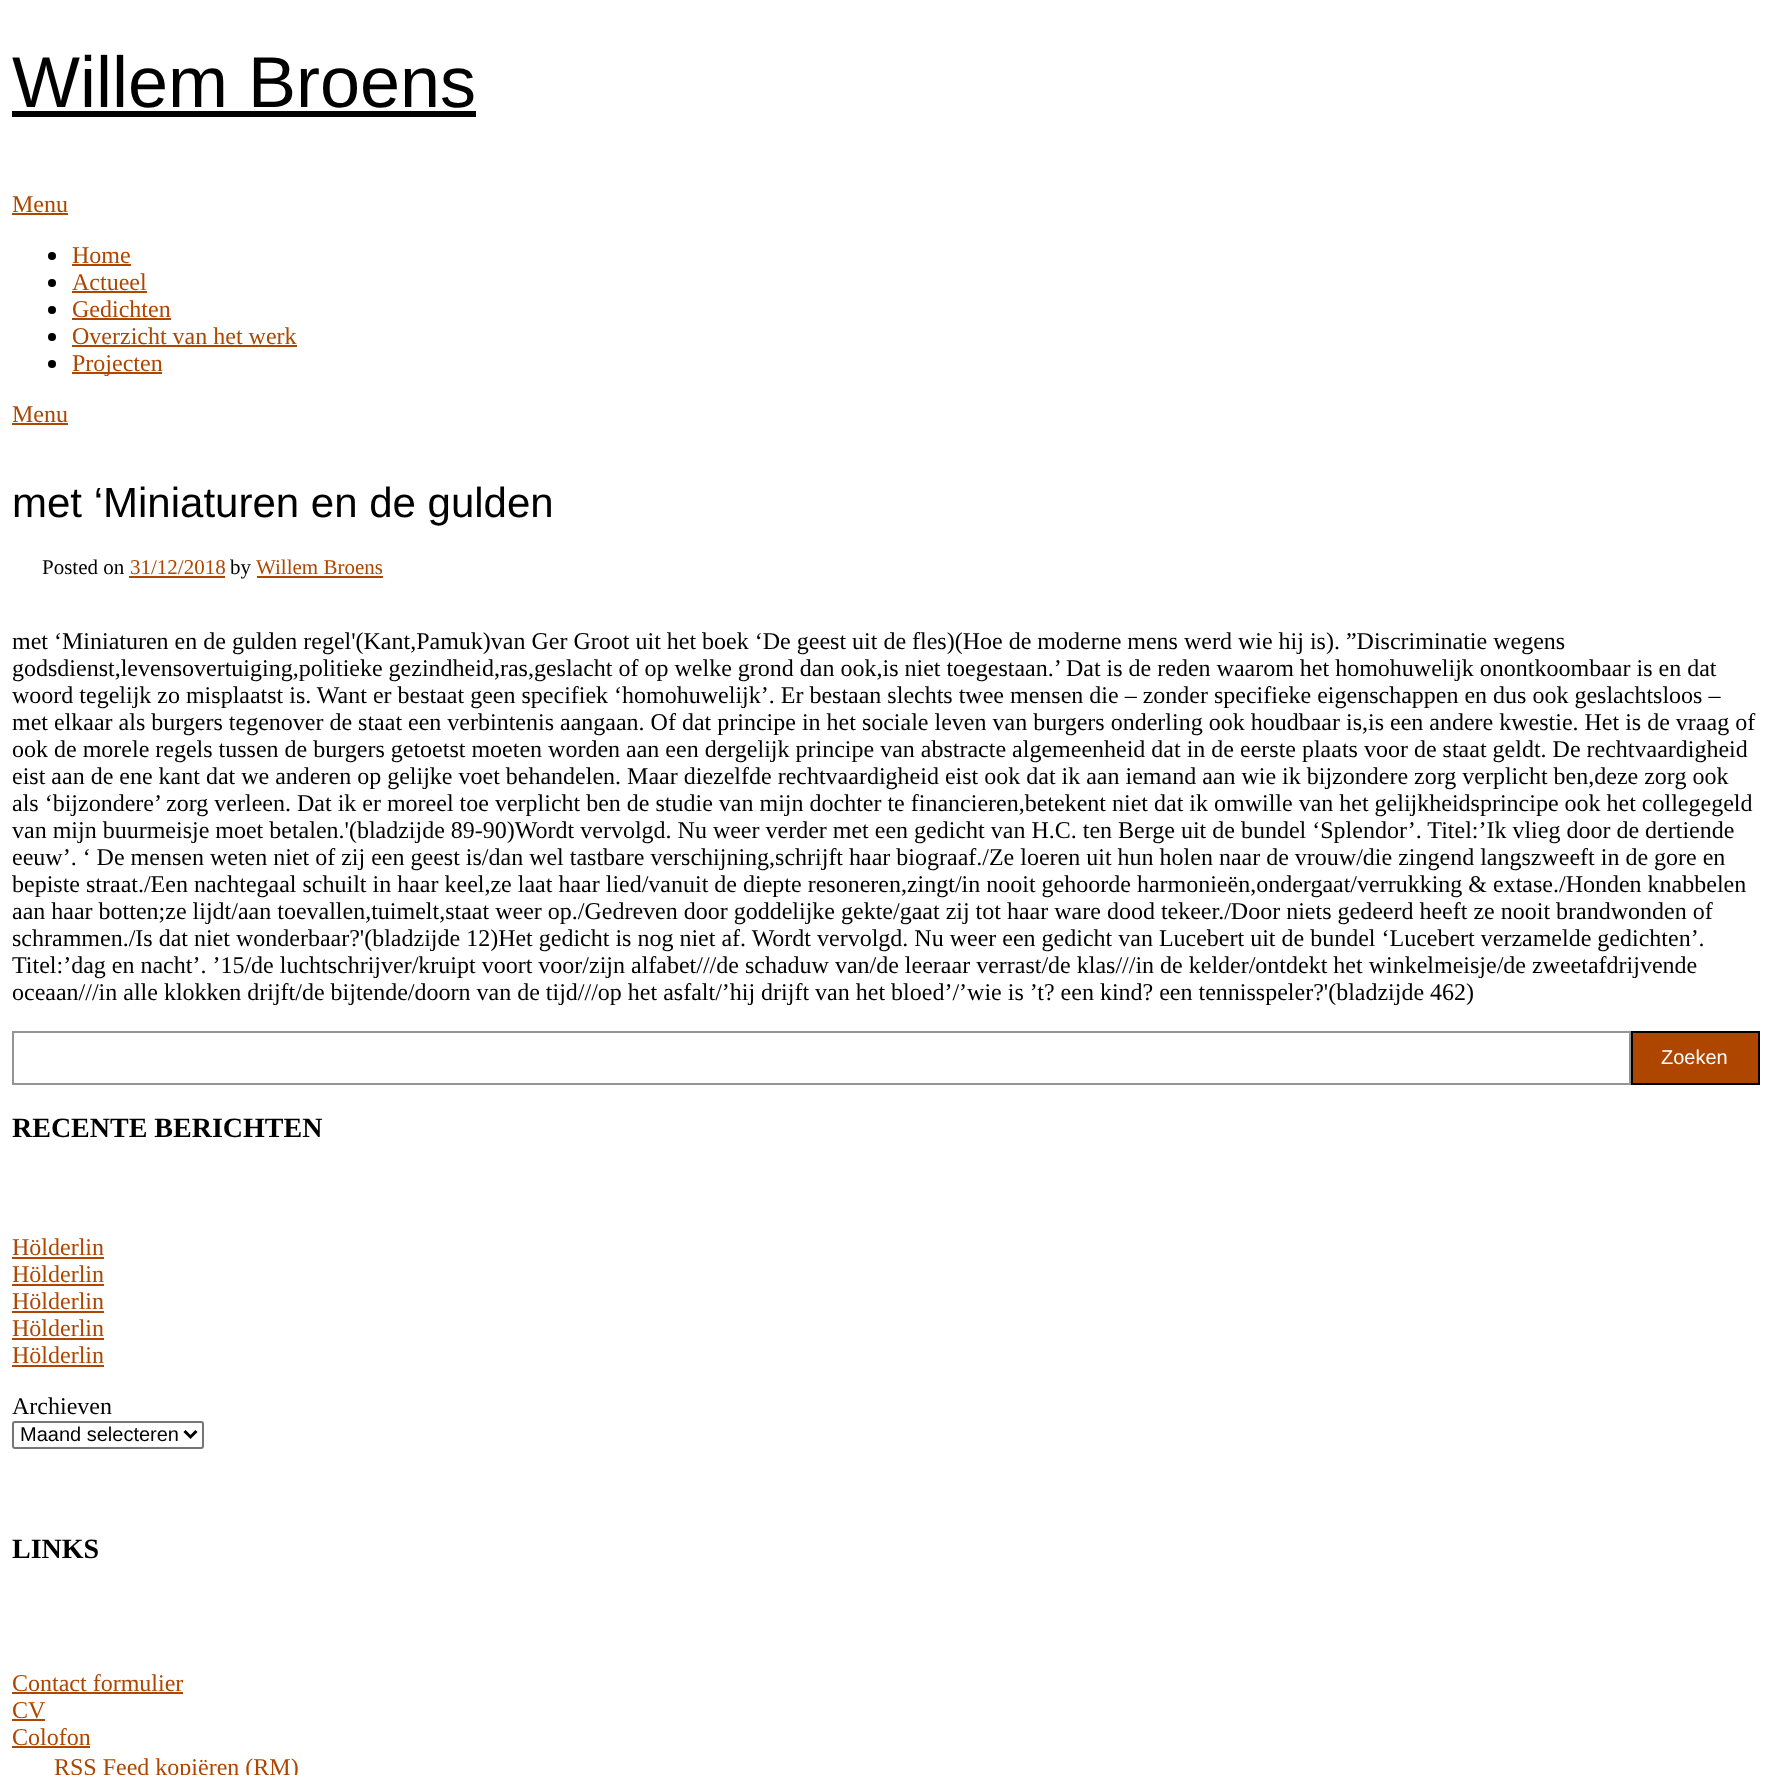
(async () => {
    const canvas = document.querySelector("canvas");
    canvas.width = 1771;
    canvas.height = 1775;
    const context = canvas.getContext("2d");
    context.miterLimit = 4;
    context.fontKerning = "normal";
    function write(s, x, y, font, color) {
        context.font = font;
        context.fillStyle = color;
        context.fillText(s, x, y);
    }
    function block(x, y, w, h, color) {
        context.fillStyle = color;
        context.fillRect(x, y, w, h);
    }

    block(0, 0, 1771, 1775, "rgb(255, 255, 255)");
    write("Willem Broens", 12, 107, "72px Liberation Sans", "rgb(0, 0, 0)");
    block(12, 111, 464, 6, "rgb(0, 0, 0)");
    write("Menu", 12, 212, "24px Liberation Serif", "rgb(174, 70, 0)");
    block(12, 213, 56, 2, "rgb(174, 70, 0)");
    context.fillStyle = "rgb(0, 0, 0)";
    context.beginPath();
    context.arc(52, 256, 4, 0, Math.PI * 2);
    context.fill();
    write("Home", 72, 263, "24px Liberation Serif", "rgb(174, 70, 0)");
    block(72, 264, 59, 2, "rgb(174, 70, 0)");
    context.fillStyle = "rgb(0, 0, 0)";
    context.beginPath();
    context.arc(52, 283, 4, 0, Math.PI * 2);
    context.fill();
    write("Actueel", 72, 290, "24px Liberation Serif", "rgb(174, 70, 0)");
    block(72, 291, 75, 2, "rgb(174, 70, 0)");
    context.fillStyle = "rgb(0, 0, 0)";
    context.beginPath();
    context.arc(52, 310, 4, 0, Math.PI * 2);
    context.fill();
    write("Gedichten", 72, 317, "24px Liberation Serif", "rgb(174, 70, 0)");
    block(72, 318, 99, 2, "rgb(174, 70, 0)");
    context.fillStyle = "rgb(0, 0, 0)";
    context.beginPath();
    context.arc(52, 337, 4, 0, Math.PI * 2);
    context.fill();
    write("Overzicht van het werk", 72, 344, "24px Liberation Serif", "rgb(174, 70, 0)");
    block(72, 345, 225, 2, "rgb(174, 70, 0)");
    context.fillStyle = "rgb(0, 0, 0)";
    context.beginPath();
    context.arc(52, 364, 4, 0, Math.PI * 2);
    context.fill();
    block(72, 372, 90, 2, "rgb(174, 70, 0)");
    write("Projecten", 72, 371, "24px Liberation Serif", "rgb(174, 70, 0)");
    write("Menu", 12, 422, "24px Liberation Serif", "rgb(174, 70, 0)");
    block(12, 423, 56, 2, "rgb(174, 70, 0)");
    write("met ‘Miniaturen en de gulden", 12, 517, "42px Liberation Sans", "rgb(0, 0, 0)");
    write("Posted on", 42, 574, "21px Liberation Serif", "rgb(0, 0, 0)");
    write("31/12/2018", 130, 574, "21px Liberation Serif", "rgb(174, 70, 0)");
    block(129, 576, 96, 2, "rgb(174, 70, 0)");
    write("by", 230, 574, "21px Liberation Serif", "rgb(0, 0, 0)");
    write("Willem Broens", 256, 574, "21px Liberation Serif", "rgb(174, 70, 0)");
    block(257, 576, 126, 2, "rgb(174, 70, 0)");
    write("met ‘Miniaturen en de gulden regel'(Kant,Pamuk)van Ger Groot uit het boek ‘De geest uit de fles)(Hoe de moderne mens werd wie hij is). ”Discriminatie wegens", 12, 649, "24px Liberation Serif", "rgb(0, 0, 0)");
    write("godsdienst,levensovertuiging,politieke gezindheid,ras,geslacht of op welke grond dan ook,is niet toegestaan.’ Dat is de reden waarom het homohuwelijk onontkoombaar is en dat", 12, 676, "24px Liberation Serif", "rgb(0, 0, 0)");
    write("woord tegelijk zo misplaatst is. Want er bestaat geen specifiek ‘homohuwelijk’. Er bestaan slechts twee mensen die – zonder specifieke eigenschappen en dus ook geslachtsloos –", 12, 703, "24px Liberation Serif", "rgb(0, 0, 0)");
    write("met elkaar als burgers tegenover de staat een verbintenis aangaan. Of dat principe in het sociale leven van burgers onderling ook houdbaar is,is een andere kwestie. Het is de vraag of", 12, 730, "24px Liberation Serif", "rgb(0, 0, 0)");
    write("ook de morele regels tussen de burgers getoetst moeten worden aan een dergelijk principe van abstracte algemeenheid dat in de eerste plaats voor de staat geldt. De rechtvaardigheid", 12, 757, "24px Liberation Serif", "rgb(0, 0, 0)");
    write("eist aan de ene kant dat we anderen op gelijke voet behandelen. Maar diezelfde rechtvaardigheid eist ook dat ik aan iemand aan wie ik bijzondere zorg verplicht ben,deze zorg ook", 12, 784, "24px Liberation Serif", "rgb(0, 0, 0)");
    write("als ‘bijzondere’ zorg verleen. Dat ik er moreel toe verplicht ben de studie van mijn dochter te financieren,betekent niet dat ik omwille van het gelijkheidsprincipe ook het collegegeld", 12, 811, "24px Liberation Serif", "rgb(0, 0, 0)");
    write("van mijn buurmeisje moet betalen.'(bladzijde 89-90)Wordt vervolgd. Nu weer verder met een gedicht van H.C. ten Berge uit de bundel ‘Splendor’. Titel:’Ik vlieg door de dertiende", 12, 838, "24px Liberation Serif", "rgb(0, 0, 0)");
    write("eeuw’. ‘ De mensen weten niet of zij een geest is/dan wel tastbare verschijning,schrijft haar biograaf./Ze loeren uit hun holen naar de vrouw/die zingend langszweeft in de gore en", 12, 865, "24px Liberation Serif", "rgb(0, 0, 0)");
    write("bepiste straat./Een nachtegaal schuilt in haar keel,ze laat haar lied/vanuit de diepte resoneren,zingt/in nooit gehoorde harmonieën,ondergaat/verrukking & extase./Honden knabbelen", 12, 892, "24px Liberation Serif", "rgb(0, 0, 0)");
    write("aan haar botten;ze lijdt/aan toevallen,tuimelt,staat weer op./Gedreven door goddelijke gekte/gaat zij tot haar ware dood tekeer./Door niets gedeerd heeft ze nooit brandwonden of", 12, 919, "24px Liberation Serif", "rgb(0, 0, 0)");
    write("schrammen./Is dat niet wonderbaar?'(bladzijde 12)Het gedicht is nog niet af. Wordt vervolgd. Nu weer een gedicht van Lucebert uit de bundel ‘Lucebert verzamelde gedichten’.", 12, 946, "24px Liberation Serif", "rgb(0, 0, 0)");
    write("Titel:’dag en nacht’. ’15/de luchtschrijver/kruipt voort voor/zijn alfabet///de schaduw van/de leeraar verrast/de klas///in de kelder/ontdekt het winkelmeisje/de zweetafdrijvende", 12, 973, "24px Liberation Serif", "rgb(0, 0, 0)");
    write("oceaan///in alle klokken drijft/de bijtende/doorn van de tijd///op het asfalt/’hij drijft van het bloed’/’wie is ’t? een kind? een tennisspeler?'(bladzijde 462)", 12, 1000, "24px Liberation Serif", "rgb(0, 0, 0)");
    context.strokeStyle = "rgb(148, 148, 148)";
    context.lineWidth = 2;
    context.strokeRect(13, 1032, 1617, 52);
    context.fillStyle = "rgb(174, 70, 0)";
    context.beginPath();
    context.rect(1632, 1032, 127, 52);
    context.fill();
    context.strokeStyle = "rgb(0, 0, 0)";
    context.stroke();
    write("Zoeken", 1661, 1064, "20px Liberation Sans", "rgb(255, 255, 255)");
    write("RECENTE BERICHTEN", 12, 1137, "bold 28px Liberation Serif", "rgb(0, 0, 0)");
    write("Hölderlin", 12, 1255, "24px Liberation Serif", "rgb(174, 70, 0)");
    block(12, 1257, 92, 2, "rgb(174, 70, 0)");
    write("Hölderlin", 12, 1282, "24px Liberation Serif", "rgb(174, 70, 0)");
    block(12, 1284, 92, 2, "rgb(174, 70, 0)");
    write("Hölderlin", 12, 1309, "24px Liberation Serif", "rgb(174, 70, 0)");
    block(12, 1311, 92, 2, "rgb(174, 70, 0)");
    write("Hölderlin", 12, 1336, "24px Liberation Serif", "rgb(174, 70, 0)");
    block(12, 1338, 92, 2, "rgb(174, 70, 0)");
    write("Hölderlin", 12, 1363, "24px Liberation Serif", "rgb(174, 70, 0)");
    block(12, 1365, 92, 2, "rgb(174, 70, 0)");
    write("Archieven", 12, 1414, "24px Liberation Serif", "rgb(0, 0, 0)");
    context.beginPath();
    context.roundRect(13, 1422, 190, 26, 2);
    context.strokeStyle = "rgb(118, 118, 118)";
    context.stroke();
    context.beginPath();
    context.moveTo(184.5, 1431);
    context.lineTo(190.5, 1437);
    context.lineTo(196.5, 1431);
    context.strokeStyle = "rgb(0, 0, 0)";
    context.lineWidth = 3;
    context.stroke();
    write("Maand selecteren", 20, 1441, "20px Liberation Sans", "rgb(0, 0, 0)");
    write("LINKS", 12, 1558, "bold 28px Liberation Serif", "rgb(0, 0, 0)");
    write("Contact formulier", 12, 1691, "24px Liberation Serif", "rgb(174, 70, 0)");
    block(12, 1692, 171, 2, "rgb(174, 70, 0)");
    write("CV", 12, 1718, "24px Liberation Serif", "rgb(174, 70, 0)");
    block(12, 1719, 33, 2, "rgb(174, 70, 0)");
    write("Colofon", 12, 1745, "24px Liberation Serif", "rgb(174, 70, 0)");
    block(12, 1746, 78, 2, "rgb(174, 70, 0)");
    write("RSS Feed kopiëren (RM)", 54, 1775, "24px Liberation Serif", "rgb(174, 70, 0)");
})();
